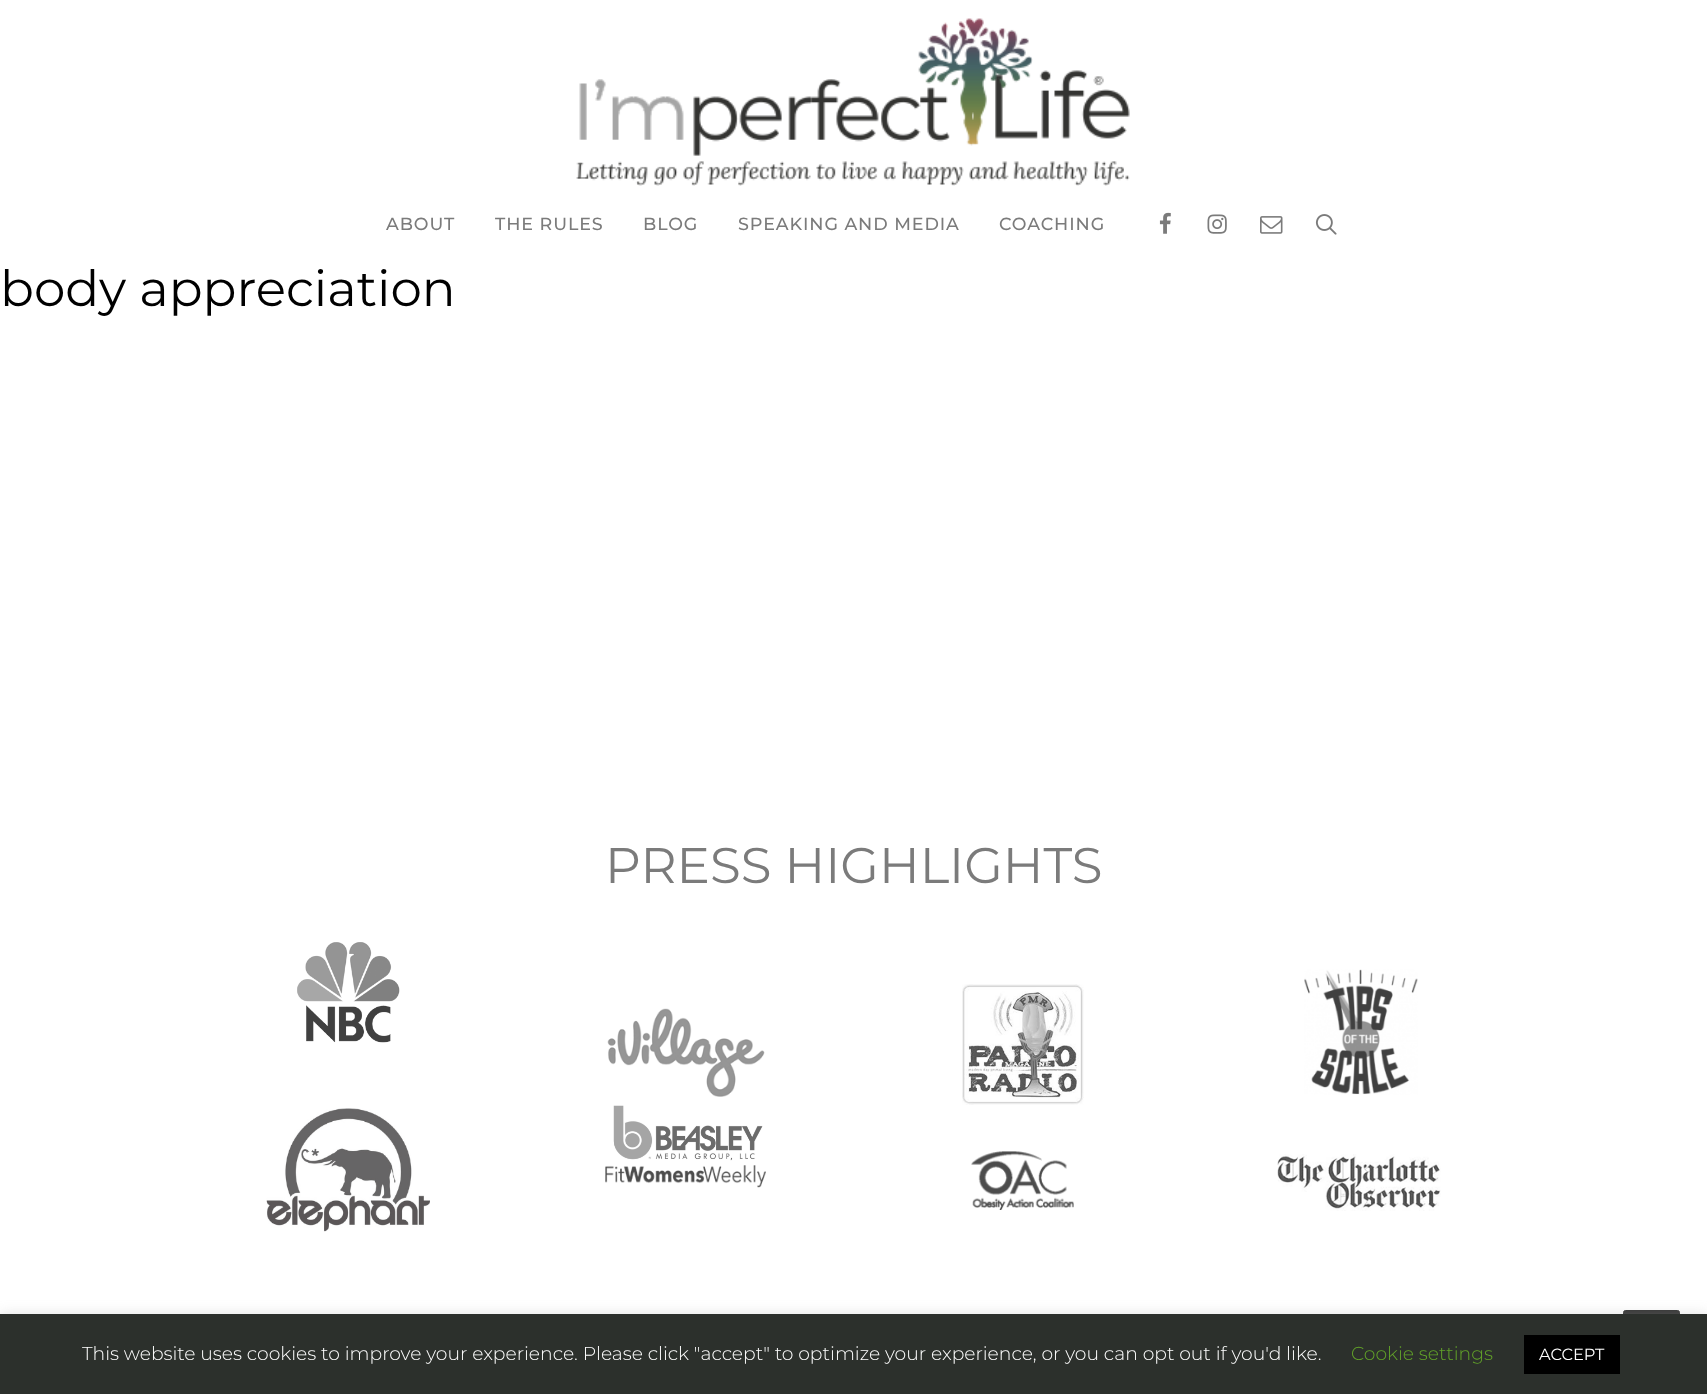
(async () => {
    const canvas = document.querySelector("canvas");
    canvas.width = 1707;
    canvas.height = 1394;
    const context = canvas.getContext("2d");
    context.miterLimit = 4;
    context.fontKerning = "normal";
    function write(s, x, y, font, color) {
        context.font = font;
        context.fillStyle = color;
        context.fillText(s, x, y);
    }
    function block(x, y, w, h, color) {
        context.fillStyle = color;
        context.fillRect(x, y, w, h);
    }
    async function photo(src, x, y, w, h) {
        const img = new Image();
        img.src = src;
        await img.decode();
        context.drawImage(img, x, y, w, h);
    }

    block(0, 0, 1707, 1394, "rgb(255, 255, 255)");
    await photo("media/1.png", 576, 18, 554, 168);
    context.letterSpacing = "0.9px";
    write("ABOUT", 386, 230, "500 17.5px Montserrat", "rgb(123, 123, 123)");
    write("THE RULES", 495, 230, "500 17.5px Montserrat", "rgb(123, 123, 123)");
    write("BLOG", 643, 230, "500 17.5px Montserrat", "rgb(123, 123, 123)");
    write("SPEAKING AND MEDIA", 738, 230, "500 17.5px Montserrat", "rgb(123, 123, 123)");
    write("COACHING", 999, 230, "500 17.5px Montserrat", "rgb(123, 123, 123)");
    await photo("media/2.png", 1159, 212, 12, 22);
    await photo("media/3.png", 1207, 214, 20, 20);
    await photo("media/4.png", 1260, 216, 23, 18);
    await photo("media/5.png", 1315, 214, 22, 21);
    context.letterSpacing = "0px";
    write("body appreciation", 0, 306, "50px Montserrat", "rgb(0, 0, 0)");
    write("PRESS HIGHLIGHTS", 605, 883, "50px Montserrat", "rgb(123, 123, 123)");
    await photo("media/6.png", 297, 942, 103, 101);
    await photo("media/7.png", 266, 1108, 164, 124);
    await photo("media/8.png", 607, 1008, 158, 89);
    await photo("media/9.png", 613, 1105, 150, 56);
    await photo("media/10.png", 605, 1165, 161, 23);
    await photo("media/11.png", 962, 984, 122, 121);
    await photo("media/12.png", 971, 1151, 103, 59);
    await photo("media/13.png", 1304, 969, 114, 126);
    await photo("media/14.png", 1277, 1154, 164, 57);
    context.fillStyle = "rgb(49, 49, 49)";
    context.beginPath();
    context.roundRect(1623.5, 1310.5, 56, 57, 2);
    context.fill();
    context.strokeStyle = "rgb(49, 49, 49)";
    context.stroke();
    context.fillStyle = "rgba(172, 171, 171, 0.3)";
    context.filter = "blur(6px)";
    context.beginPath();
    context.rect(0, 1313, 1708, 81);
    context.fill();
    context.filter = "none";
    block(0, 1314, 1707, 80, "rgb(44, 48, 44)");
    write("This website uses cookies to improve your experience. Please click \"accept\" to optimize your experience, or you can opt out if you'd like.", 82, 1360, "300 18.75px Montserrat", "rgb(255, 255, 255)");
    write("Cookie settings", 1351, 1360, "300 18.75px Montserrat", "rgb(98, 163, 41)");
    block(1524, 1335, 96, 39, "rgb(0, 0, 0)");
    write("ACCEPT", 1539, 1360, "16.25px Montserrat", "rgb(255, 255, 255)");
})();
